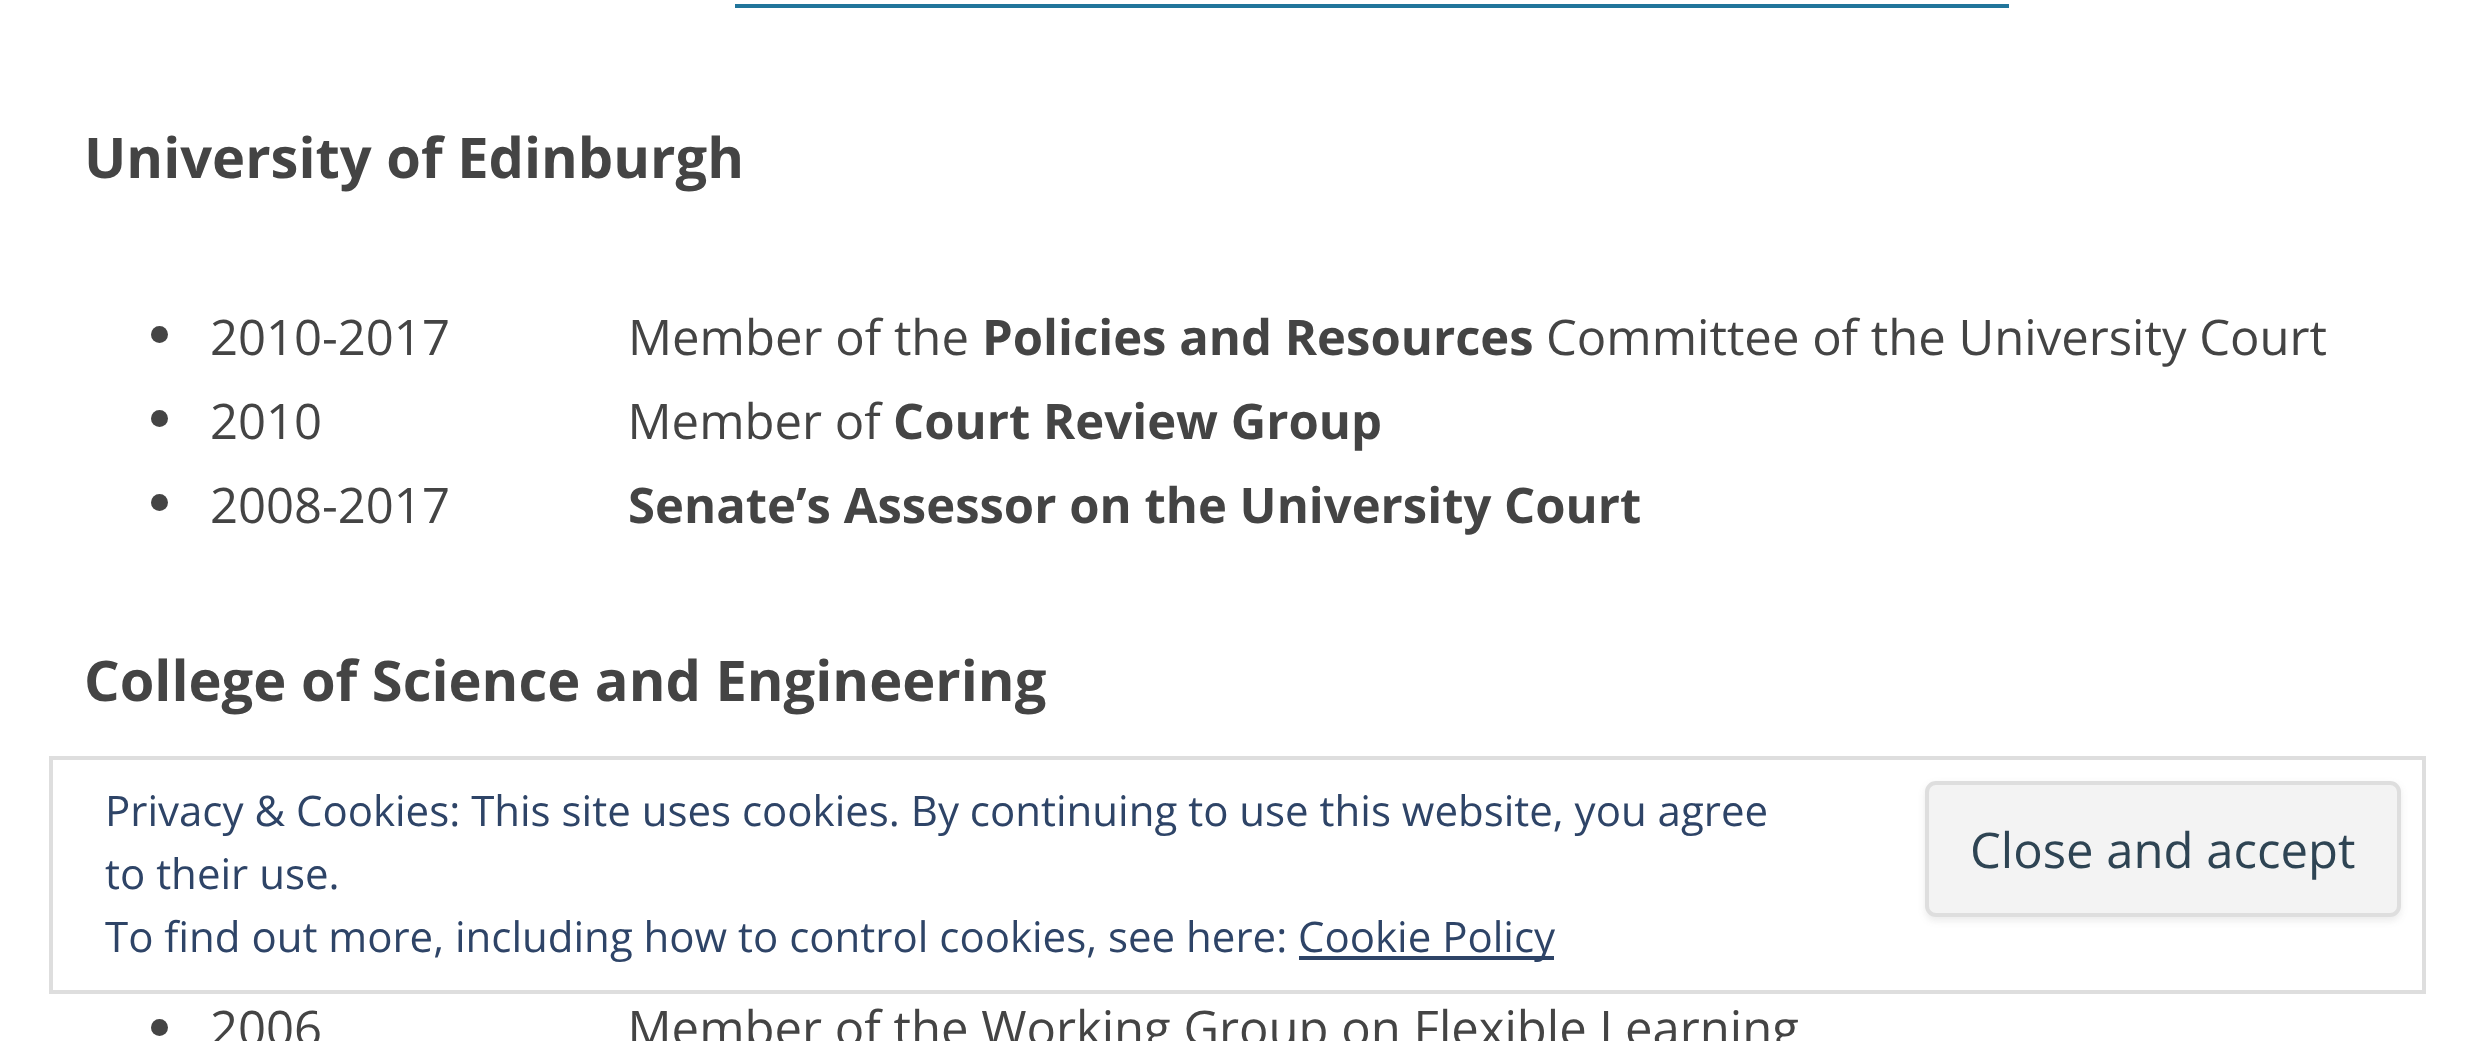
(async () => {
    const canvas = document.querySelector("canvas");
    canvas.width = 2473;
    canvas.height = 1041;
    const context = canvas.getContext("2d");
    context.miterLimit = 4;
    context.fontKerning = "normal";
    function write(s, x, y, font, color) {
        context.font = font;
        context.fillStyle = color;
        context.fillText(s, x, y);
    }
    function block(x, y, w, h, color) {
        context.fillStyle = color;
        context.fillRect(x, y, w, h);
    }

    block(0, 0, 2473, 1041, "rgb(255, 255, 255)");
    block(735, 4, 1274, 4, "rgb(33, 117, 155)");
    write("University of Edinburgh", 84, 178, "bold 56px Open Sans", "rgb(68, 68, 68)");
    context.beginPath();
    context.arc(159.5, 334.5, 8.5, 0, Math.PI * 2);
    context.fill();
    write("2010-2017", 210, 355, "49px Open Sans", "rgb(68, 68, 68)");
    write("Member of the", 628, 355, "49px Open Sans", "rgb(68, 68, 68)");
    write("Policies and Resources", 982, 355, "bold 49px Open Sans", "rgb(68, 68, 68)");
    write("Committee of the University Court", 1546, 355, "49px Open Sans", "rgb(68, 68, 68)");
    context.beginPath();
    context.arc(159.5, 418.5, 8.5, 0, Math.PI * 2);
    context.fill();
    write("2010                        Member of", 210, 439, "49px Open Sans", "rgb(68, 68, 68)");
    write("Court Review Group", 893, 439, "bold 49px Open Sans", "rgb(68, 68, 68)");
    context.beginPath();
    context.arc(159.5, 502.5, 8.5, 0, Math.PI * 2);
    context.fill();
    write("2008-2017", 210, 523, "49px Open Sans", "rgb(68, 68, 68)");
    write("Senate’s Assessor on the University Court", 628, 523, "bold 49px Open Sans", "rgb(68, 68, 68)");
    write("College of Science and Engineering", 84, 701, "bold 56px Open Sans", "rgb(68, 68, 68)");
    context.beginPath();
    context.arc(159.5, 1027.5, 8.5, 0, Math.PI * 2);
    context.fill();
    write("2006                        Member of the Working Group on Flexible Learning", 210, 1046, "49px Open Sans", "rgb(68, 68, 68)");
    context.strokeStyle = "rgb(222, 222, 222)";
    context.lineWidth = 4;
    context.strokeRect(51, 758, 2373, 234);
    write("Privacy & Cookies: This site uses cookies. By continuing to use this website, you agree", 105, 826, "42px Open Sans", "rgb(46, 68, 103)");
    write("to their use.", 105, 889, "42px Open Sans", "rgb(46, 68, 103)");
    context.fillStyle = "rgba(64, 64, 64, 0.1)";
    context.filter = "blur(3.5px)";
    context.beginPath();
    context.roundRect(1925, 784, 476, 137, 11);
    context.fill();
    context.filter = "none";
    context.fillStyle = "rgb(243, 243, 243)";
    context.beginPath();
    context.roundRect(1927, 783, 472, 132, 9);
    context.fill();
    context.stroke();
    write("Close and accept", 1970, 868, "49px Open Sans", "rgb(46, 68, 83)");
    write("To find out more, including how to control cookies, see here:", 105, 952, "42px Open Sans", "rgb(46, 68, 103)");
    block(1299, 956, 255, 4, "rgb(46, 68, 103)");
    write("Cookie Policy", 1298, 952, "42px Open Sans", "rgb(46, 68, 103)");
})();
